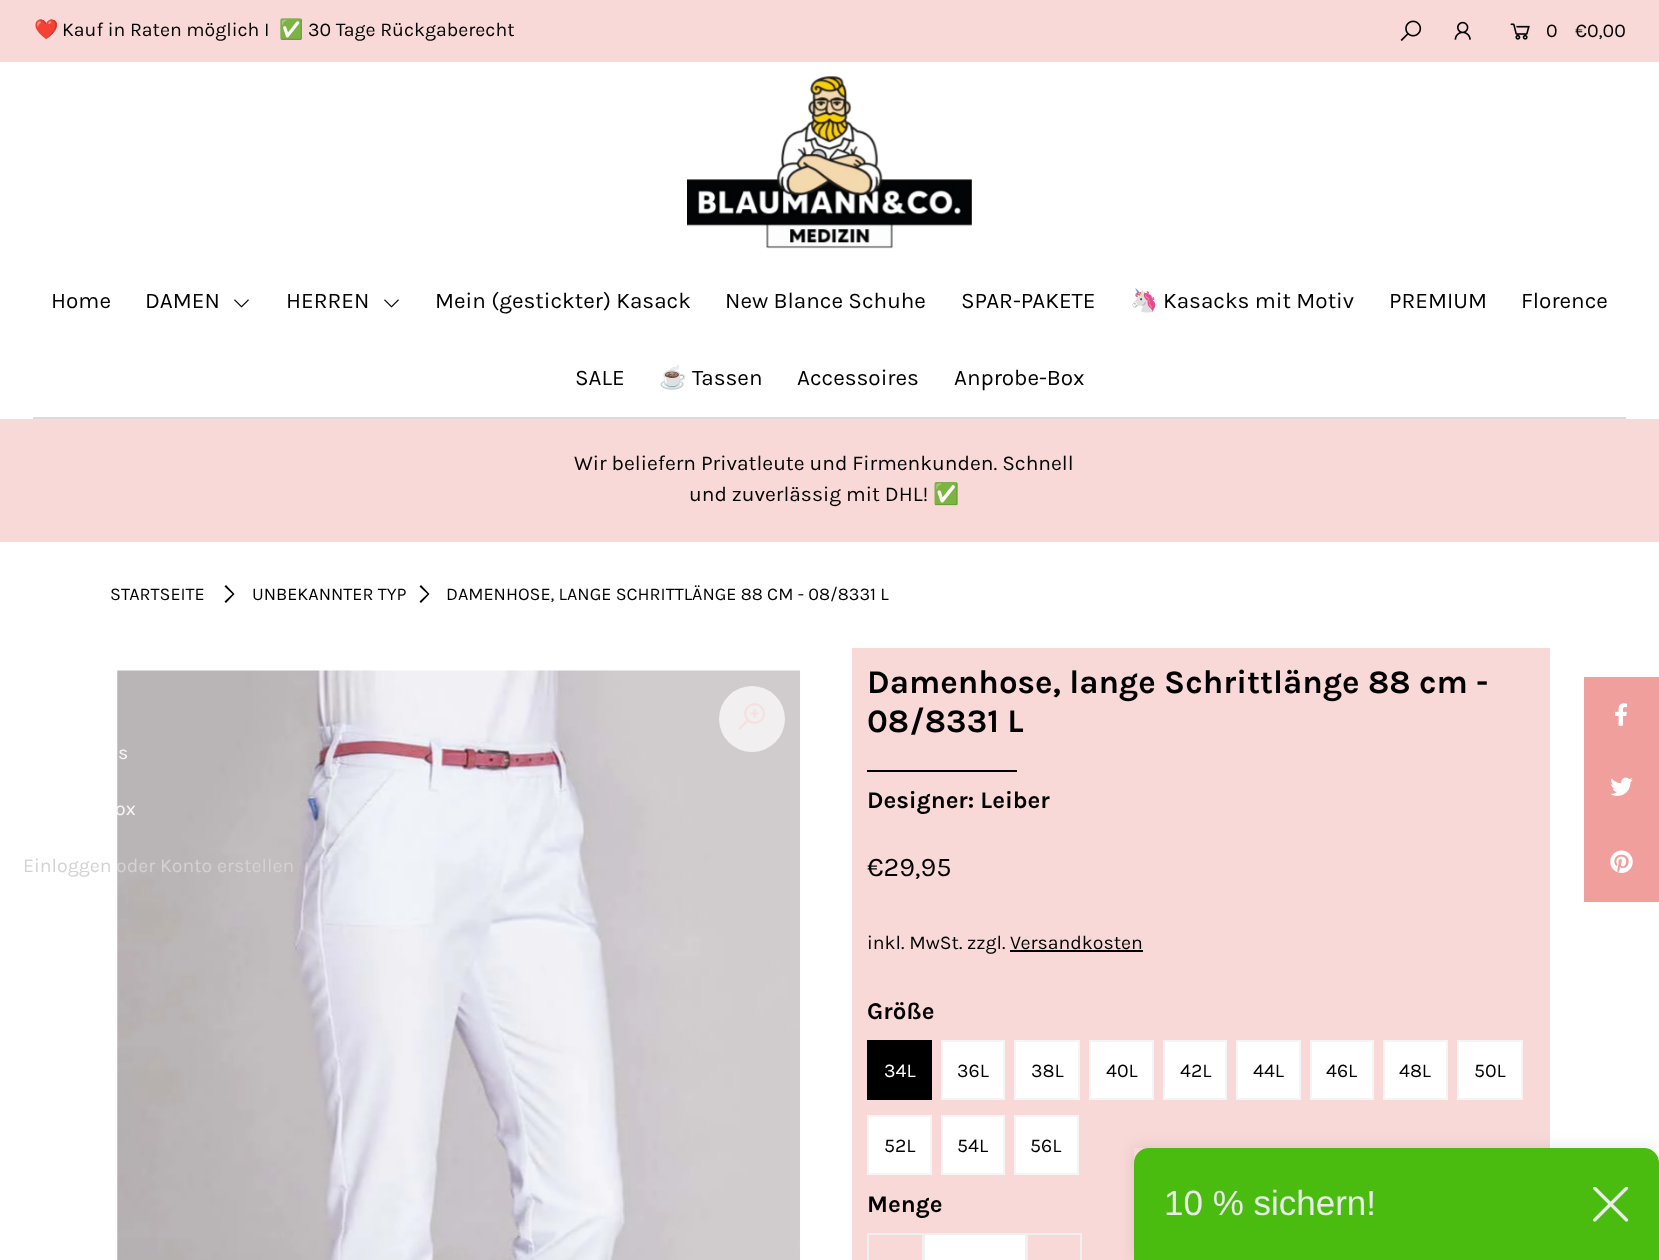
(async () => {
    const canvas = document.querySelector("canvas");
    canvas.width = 1659;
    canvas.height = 1260;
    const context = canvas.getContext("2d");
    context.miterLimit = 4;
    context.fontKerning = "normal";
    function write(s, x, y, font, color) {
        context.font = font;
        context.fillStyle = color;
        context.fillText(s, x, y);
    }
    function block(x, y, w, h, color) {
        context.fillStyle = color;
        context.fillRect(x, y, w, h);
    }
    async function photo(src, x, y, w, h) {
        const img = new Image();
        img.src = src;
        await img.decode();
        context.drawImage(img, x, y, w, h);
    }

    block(0, 0, 1659, 1260, "rgb(255, 255, 255)");
    block(0, 0, 1659, 62, "rgb(248, 217, 215)");
    write("❤️", 34, 36, "19.5px Noto Color Emoji", "rgb(0, 0, 0)");
    write("Kauf in Raten möglich I", 62, 36, "19.5px Karla", "rgb(0, 0, 0)");
    write("✅", 279, 36, "19.5px Noto Color Emoji", "rgb(0, 0, 0)");
    write("30 Tage Rückgaberecht", 308, 36, "19.5px Karla", "rgb(0, 0, 0)");
    await photo("media/1.png", 1400, 20, 22, 21);
    await photo("media/2.png", 1454, 21, 17, 19);
    await photo("media/3.png", 1510, 23, 20, 17);
    write("0", 1546, 37, "19.5px Karla", "rgb(0, 0, 0)");
    write("€0,00", 1575, 37, "19.5px Karla", "rgb(0, 0, 0)");
    block(33, 417, 1593, 2, "rgb(219, 219, 219)");
    await photo("media/4.png", 687, 76, 285, 173);
    write("Home", 51, 308, "22.5px Karla", "rgb(0, 0, 0)");
    write("DAMEN", 145, 308, "22.5px Karla", "rgb(0, 0, 0)");
    await photo("media/5.png", 234, 299, 15, 9);
    write("HERREN", 286, 308, "22.5px Karla", "rgb(0, 0, 0)");
    await photo("media/5.png", 384, 299, 15, 9);
    write("Mein (gestickter) Kasack", 435, 308, "22.5px Karla", "rgb(0, 0, 0)");
    write("New Blance Schuhe", 725, 308, "22.5px Karla", "rgb(0, 0, 0)");
    write("SPAR-PAKETE", 961, 308, "22.5px Karla", "rgb(0, 0, 0)");
    write("🦄", 1130, 308, "22.5px Noto Color Emoji", "rgb(0, 0, 0)");
    write("Kasacks mit Motiv", 1163, 308, "22.5px Karla", "rgb(0, 0, 0)");
    write("PREMIUM", 1389, 308, "22.5px Karla", "rgb(0, 0, 0)");
    write("Florence", 1521, 308, "22.5px Karla", "rgb(0, 0, 0)");
    write("SALE", 575, 385, "22.5px Karla", "rgb(0, 0, 0)");
    write("☕️", 659, 385, "22.5px Noto Color Emoji", "rgb(0, 0, 0)");
    write("Tassen", 692, 385, "22.5px Karla", "rgb(0, 0, 0)");
    write("Accessoires", 797, 385, "22.5px Karla", "rgb(0, 0, 0)");
    write("Anprobe-Box", 954, 385, "22.5px Karla", "rgb(0, 0, 0)");
    block(0, 419, 1659, 123, "rgb(248, 217, 215)");
    write("Wir beliefern Privatleute und Firmenkunden. Schnell", 574, 470, "21px Karla", "rgb(0, 0, 0)");
    write("und zuverlässig mit DHL!", 689, 501, "21px Karla", "rgb(0, 0, 0)");
    write("✅", 933, 501, "21px Noto Color Emoji", "rgb(0, 0, 0)");
    write("STARTSEITE", 110, 600, "18px Karla", "rgb(0, 0, 0)");
    context.beginPath();
    context.moveTo(226, 585);
    context.lineTo(234.5, 594);
    context.lineTo(226, 603);
    context.lineTo(224.5, 601.5);
    context.lineTo(232.5, 594);
    context.lineTo(224.5, 586.5);
    context.closePath();
    context.fill();
    write("UNBEKANNTER TYP", 252, 600, "18px Karla", "rgb(0, 0, 0)");
    context.beginPath();
    context.moveTo(421, 585);
    context.lineTo(429.5, 594);
    context.lineTo(421, 603);
    context.lineTo(419.5, 601.5);
    context.lineTo(427.5, 594);
    context.lineTo(419.5, 586.5);
    context.closePath();
    context.fill();
    write("DAMENHOSE, LANGE SCHRITTLÄNGE 88 CM - 08/8331 L", 446, 600, "18px Karla", "rgb(0, 0, 0)");
    await photo("media/6.png", 117, 670, 683, 590);
    context.fillStyle = "rgb(241, 239, 240)";
    context.beginPath();
    context.arc(752, 719, 33, 0, Math.PI * 2);
    context.fill();
    await photo("media/7.png", 738, 703, 27, 27);
    block(852, 648, 698, 612, "rgb(248, 217, 215)");
    write("Damenhose, lange Schrittlänge 88 cm -", 867, 693, "bold 33px Karla", "rgb(0, 0, 0)");
    write("08/8331 L", 867, 732, "bold 33px Karla", "rgb(0, 0, 0)");
    block(867, 770, 150, 2, "rgb(0, 0, 0)");
    write("Designer: Leiber", 867, 808, "bold 24px Karla", "rgb(0, 0, 0)");
    write("€29,95", 867, 876, "27px Karla", "rgb(0, 0, 0)");
    write("inkl. MwSt. zzgl. Versandkosten", 867, 949, "19.5px Karla", "rgb(0, 0, 0)");
    block(1010, 950, 133, 2, "rgb(0, 0, 0)");
    write("Größe", 867, 1019, "bold 24px Karla", "rgb(0, 0, 0)");
    block(867, 1040, 65, 60, "rgb(0, 0, 0)");
    write("34L", 884, 1077, "19.5px Karla", "rgb(255, 255, 255)");
    context.beginPath();
    context.rect(942, 1041, 62, 58);
    context.fill();
    context.strokeStyle = "rgb(245, 245, 245)";
    context.lineWidth = 2;
    context.stroke();
    write("36L", 957, 1077, "19.5px Karla", "rgb(0, 0, 0)");
    context.fillStyle = "rgb(255, 255, 255)";
    context.beginPath();
    context.rect(1015, 1041, 64, 58);
    context.fill();
    context.stroke();
    write("38L", 1031, 1077, "19.5px Karla", "rgb(0, 0, 0)");
    context.fillStyle = "rgb(255, 255, 255)";
    context.beginPath();
    context.rect(1090, 1041, 63, 58);
    context.fill();
    context.stroke();
    write("40L", 1106, 1077, "19.5px Karla", "rgb(0, 0, 0)");
    context.fillStyle = "rgb(255, 255, 255)";
    context.beginPath();
    context.rect(1164, 1041, 62, 58);
    context.fill();
    context.stroke();
    write("42L", 1180, 1077, "19.5px Karla", "rgb(0, 0, 0)");
    context.fillStyle = "rgb(255, 255, 255)";
    context.beginPath();
    context.rect(1237, 1041, 63, 58);
    context.fill();
    context.stroke();
    write("44L", 1253, 1077, "19.5px Karla", "rgb(0, 0, 0)");
    context.fillStyle = "rgb(255, 255, 255)";
    context.beginPath();
    context.rect(1311, 1041, 62, 58);
    context.fill();
    context.stroke();
    write("46L", 1326, 1077, "19.5px Karla", "rgb(0, 0, 0)");
    context.fillStyle = "rgb(255, 255, 255)";
    context.beginPath();
    context.rect(1384, 1041, 63, 58);
    context.fill();
    context.stroke();
    write("48L", 1399, 1077, "19.5px Karla", "rgb(0, 0, 0)");
    context.fillStyle = "rgb(255, 255, 255)";
    context.beginPath();
    context.rect(1458, 1041, 64, 58);
    context.fill();
    context.stroke();
    write("50L", 1474, 1077, "19.5px Karla", "rgb(0, 0, 0)");
    context.fillStyle = "rgb(255, 255, 255)";
    context.beginPath();
    context.rect(868, 1116, 63, 58);
    context.fill();
    context.stroke();
    write("52L", 884, 1152, "19.5px Karla", "rgb(0, 0, 0)");
    context.fillStyle = "rgb(255, 255, 255)";
    context.beginPath();
    context.rect(942, 1116, 62, 58);
    context.fill();
    context.stroke();
    write("54L", 957, 1152, "19.5px Karla", "rgb(0, 0, 0)");
    context.fillStyle = "rgb(255, 255, 255)";
    context.beginPath();
    context.rect(1015, 1116, 63, 58);
    context.fill();
    context.stroke();
    write("56L", 1030, 1152, "19.5px Karla", "rgb(0, 0, 0)");
    write("Menge", 867, 1212, "bold 24px Karla", "rgb(0, 0, 0)");
    context.strokeStyle = "rgb(240, 240, 240)";
    context.strokeRect(868, 1234, 55, 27);
    context.fillStyle = "rgb(255, 255, 255)";
    context.beginPath();
    context.roundRect(924, 1234, 103, 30, 2);
    context.fill();
    context.stroke();
    context.strokeRect(1026, 1234, 55, 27);
    block(1584, 677, 75, 225, "rgb(240, 159, 156)");
    await photo("media/8.png", 1615, 703, 13, 23);
    await photo("media/9.png", 1610, 777, 23, 19);
    await photo("media/10.png", 1610, 850, 23, 23);
    write("s", 118, 759, "19.5px Karla", "rgb(248, 247, 248)");
    write("ox", 115, 815, "19.5px Karla", "rgb(248, 247, 248)");
    write("Einloggen oder Konto erstellen", 23, 872, "19.5px Karla", "rgb(213, 210, 211)");
    context.save();
    context.beginPath();
    context.moveTo(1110, 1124);
    context.lineTo(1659, 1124);
    context.lineTo(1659, 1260);
    context.lineTo(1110, 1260);
    context.closePath();
    context.moveTo(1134, 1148);
    context.lineTo(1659, 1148);
    context.lineTo(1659, 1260);
    context.lineTo(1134, 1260);
    context.closePath();
    context.clip("evenodd");
    context.fillStyle = "rgba(0, 0, 0, 0.1)";
    context.filter = "blur(7.5px)";
    context.beginPath();
    context.rect(1134, 1148, 525, 112);
    context.fill();
    context.filter = "none";
    context.restore();
    context.fillStyle = "rgb(74, 187, 15)";
    context.beginPath();
    context.roundRect(1134, 1148, 525, 112, [15, 15, 0, 0]);
    context.fill();
    write("10 % sichern!", 1164, 1215, "35px Liberation Sans", "rgb(235, 235, 235)");
    await photo("media/11.png", 1593, 1187, 36, 35);
})();
